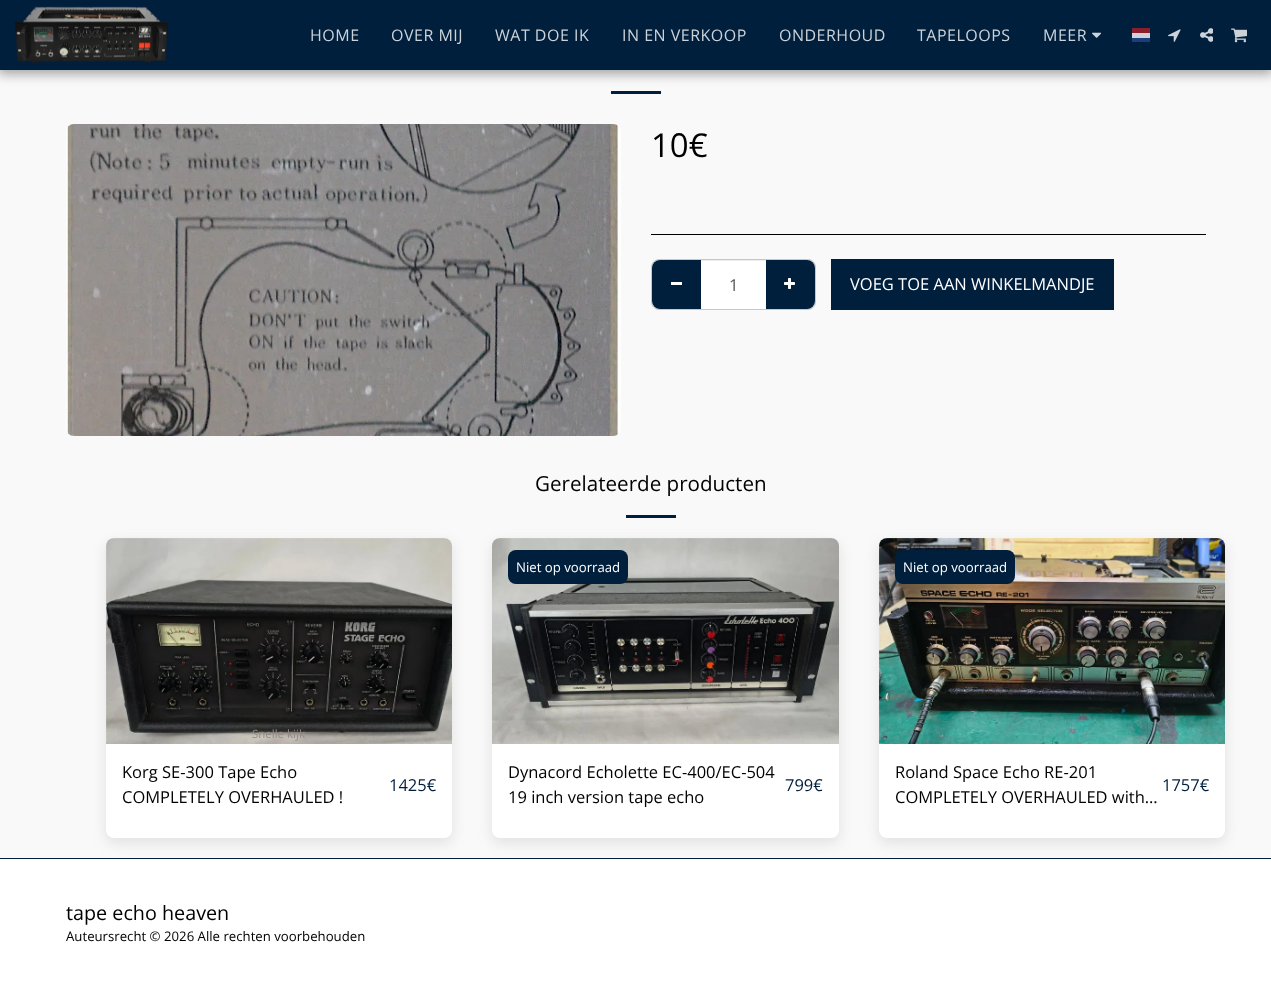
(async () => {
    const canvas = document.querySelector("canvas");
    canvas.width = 1271;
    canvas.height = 986;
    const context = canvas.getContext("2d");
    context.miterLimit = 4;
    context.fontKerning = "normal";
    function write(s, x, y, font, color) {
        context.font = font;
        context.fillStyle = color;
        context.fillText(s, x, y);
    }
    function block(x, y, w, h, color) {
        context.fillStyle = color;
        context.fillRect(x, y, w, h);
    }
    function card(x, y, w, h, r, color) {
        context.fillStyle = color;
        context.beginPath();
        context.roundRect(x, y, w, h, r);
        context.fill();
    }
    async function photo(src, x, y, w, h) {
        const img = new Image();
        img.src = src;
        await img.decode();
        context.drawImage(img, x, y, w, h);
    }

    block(0, 0, 1271, 986, "rgb(255, 255, 255)");
    block(0, 70, 1271, 788, "rgb(249, 249, 249)");
    block(611, 91, 50, 3, "rgb(0, 31, 61)");
    context.fillStyle = "rgba(0, 0, 0, 0.35)";
    context.filter = "blur(6px)";
    context.beginPath();
    context.rect(-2, 0, 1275, 74);
    context.fill();
    context.filter = "none";
    block(0, 0, 1271, 70, "rgb(0, 31, 61)");
    await photo("media/1.png", 15, 6, 153, 57);
    context.letterSpacing = "0.5px";
    write("HOME", 310, 41, "16px Open Sans", "rgb(204, 210, 216)");
    write("OVER MIJ", 391, 41, "16px Open Sans", "rgb(204, 210, 216)");
    write("WAT DOE IK", 495, 41, "16px Open Sans", "rgb(204, 210, 216)");
    write("IN EN VERKOOP", 622, 41, "16px Open Sans", "rgb(204, 210, 216)");
    write("ONDERHOUD", 779, 41, "16px Open Sans", "rgb(204, 210, 216)");
    write("TAPELOOPS", 917, 41, "16px Open Sans", "rgb(204, 210, 216)");
    write("MEER", 1043, 41, "16px Open Sans", "rgb(204, 210, 216)");
    await photo("media/2.png", 1092, 32, 9, 6);
    block(1132, 38, 18, 4, "rgb(26, 62, 123)");
    block(1132, 33, 18, 5, "rgb(204, 210, 216)");
    block(1132, 28, 18, 5, "rgb(139, 29, 44)");
    await photo("media/3.png", 1168, 29, 13, 13);
    await photo("media/4.png", 1200, 28, 13, 14);
    await photo("media/5.png", 1231, 28, 16, 15);
    await photo("media/6.png", 66, 124, 555, 312);
    context.letterSpacing = "0px";
    write("10€", 651, 157, "33px Open Sans", "rgb(0, 0, 0)");
    block(651, 234, 555, 1, "rgb(0, 0, 0)");
    context.beginPath();
    context.roundRect(651.5, 259.5, 164, 50, 7.5);
    context.strokeStyle = "rgb(199, 199, 199)";
    context.stroke();
    context.fillStyle = "rgb(0, 31, 61)";
    context.beginPath();
    context.roundRect(652, 260, 50, 49, [8, 0, 0, 8]);
    context.fill();
    block(671, 282, 11, 3, "rgb(255, 255, 255)");
    context.fillStyle = "rgb(0, 31, 61)";
    context.beginPath();
    context.roundRect(765, 260, 50, 49, [0, 8, 8, 0]);
    context.fill();
    block(701, 261, 65, 48, "rgb(255, 255, 255)");
    block(701, 260, 65, 1, "rgb(236, 236, 236)");
    write("1", 729, 291, "16.5px Open Sans", "rgb(85, 85, 85)");
    await photo("media/7.png", 784, 278, 11, 11);
    block(831, 259, 283, 51, "rgb(0, 31, 61)");
    write("VOEG TOE AAN WINKELMANDJE", 850, 290, "16.5px Open Sans", "rgb(255, 255, 255)");
    write("Gerelateerde producten", 535, 491, "20.6px Open Sans", "rgb(0, 0, 0)");
    block(626, 515, 50, 3, "rgb(0, 31, 61)");
    block(0, 858, 1271, 1, "rgb(0, 31, 61)");
    context.fillStyle = "rgba(129, 129, 129, 0.2)";
    context.filter = "blur(7px)";
    context.beginPath();
    context.roundRect(106, 543, 346, 300, 8);
    context.fill();
    context.filter = "none";
    card(106, 538, 346, 300, 8, "rgb(255, 255, 255)");
    await photo("media/8.png", 106, 538, 346, 206);
    write("Snelle kijk", 252, 738, "11.5px Open Sans", "rgb(144, 140, 134)");
    write("Korg SE-300 Tape Echo", 122, 778, "16.5px Open Sans", "rgb(0, 0, 0)");
    write("COMPLETELY OVERHAULED !", 122, 803, "16.5px Open Sans", "rgb(0, 0, 0)");
    write("1425€", 389, 791, "16.5px Open Sans", "rgb(0, 31, 61)");
    context.fillStyle = "rgba(129, 129, 129, 0.2)";
    context.filter = "blur(7px)";
    context.beginPath();
    context.roundRect(492, 543, 347, 300, 8);
    context.fill();
    context.filter = "none";
    card(492, 538, 347, 300, 8, "rgb(255, 255, 255)");
    await photo("media/10.png", 492, 542, 1, 4);
    await photo("media/9.png", 492, 538, 347, 206);
    card(508, 550, 120, 34, 8, "rgb(0, 31, 61)");
    write("Niet op voorraad", 516, 572, "13.2px Open Sans", "rgb(255, 255, 255)");
    write("Dynacord Echolette EC-400/EC-504", 508, 778, "16.5px Open Sans", "rgb(0, 0, 0)");
    write("19 inch version tape echo", 508, 803, "16.5px Open Sans", "rgb(0, 0, 0)");
    write("799€", 785, 791, "16.5px Open Sans", "rgb(0, 31, 61)");
    context.fillStyle = "rgba(129, 129, 129, 0.2)";
    context.filter = "blur(7px)";
    context.beginPath();
    context.roundRect(879, 543, 346, 300, 8);
    context.fill();
    context.filter = "none";
    card(879, 538, 346, 300, 8, "rgb(255, 255, 255)");
    await photo("media/11.png", 879, 538, 346, 206);
    card(895, 550, 120, 34, 8, "rgb(0, 31, 61)");
    write("Niet op voorraad", 903, 572, "13.2px Open Sans", "rgb(255, 255, 255)");
    write("Roland Space Echo RE-201", 895, 778, "16.5px Open Sans", "rgb(0, 0, 0)");
    write("COMPLETELY OVERHAULED with…", 895, 803, "16.5px Open Sans", "rgb(0, 0, 0)");
    write("1757€", 1162, 791, "16.5px Open Sans", "rgb(0, 31, 61)");
    write("tape echo heaven", 66, 920, "19.75px Open Sans", "rgb(0, 0, 0)");
    write("Auteursrecht © 2026 Alle rechten voorbehouden", 66, 941, "13.2px Open Sans", "rgb(0, 0, 0)");
})();
